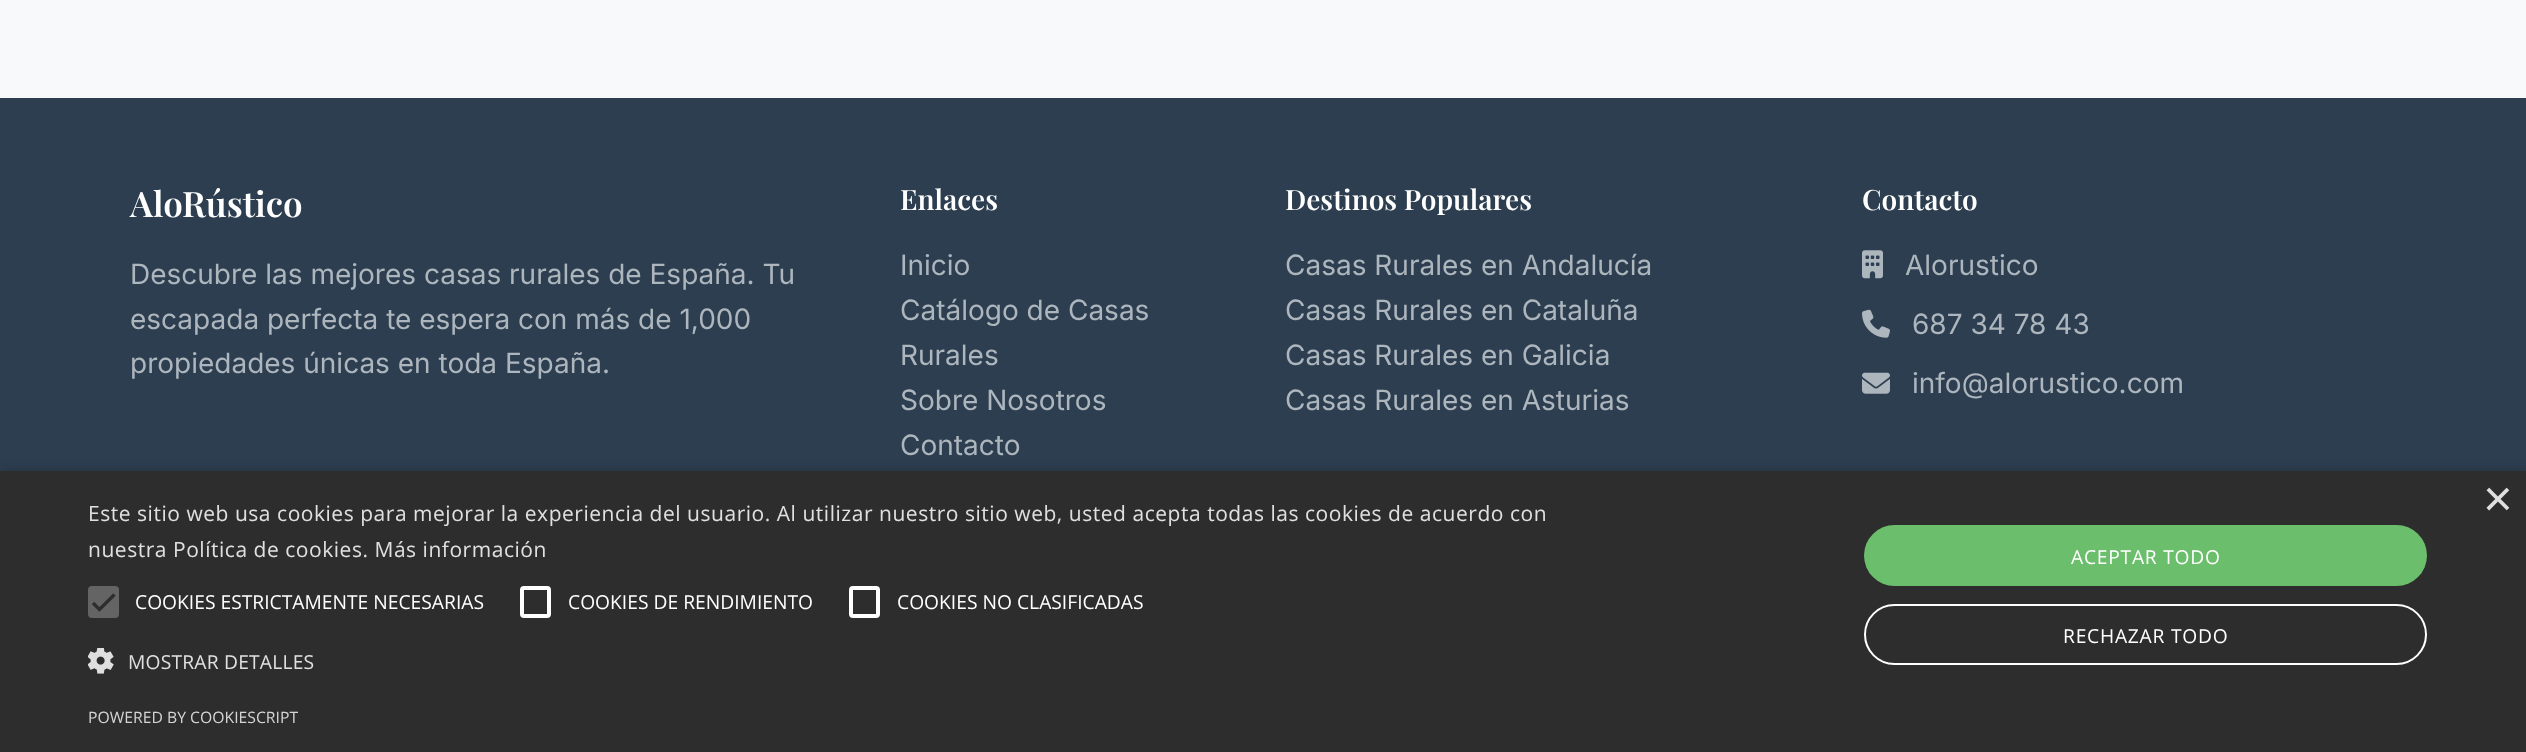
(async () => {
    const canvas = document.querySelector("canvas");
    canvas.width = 2526;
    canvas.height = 752;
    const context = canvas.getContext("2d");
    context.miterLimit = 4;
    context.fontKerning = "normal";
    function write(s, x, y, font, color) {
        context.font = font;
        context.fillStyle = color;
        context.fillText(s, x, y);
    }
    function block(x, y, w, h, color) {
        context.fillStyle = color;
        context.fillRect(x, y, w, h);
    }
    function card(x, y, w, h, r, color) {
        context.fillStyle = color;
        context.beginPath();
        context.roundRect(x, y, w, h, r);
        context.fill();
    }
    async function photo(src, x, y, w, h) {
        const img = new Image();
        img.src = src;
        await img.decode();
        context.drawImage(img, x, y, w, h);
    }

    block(0, 0, 2526, 752, "rgb(248, 249, 250)");
    block(0, 98, 2526, 373, "rgb(44, 62, 80)");
    write("AloRústico", 130, 217, "600 35px Playfair Display", "rgb(255, 255, 255)");
    write("Descubre las mejores casas rurales de España. Tu", 130, 284, "28px Inter", "rgb(173, 181, 189)");
    write("escapada perfecta te espera con más de 1,000", 130, 329, "28px Inter", "rgb(173, 181, 189)");
    write("propiedades únicas en toda España.", 130, 373, "28px Inter", "rgb(173, 181, 189)");
    write("Enlaces", 900, 210, "600 28px Playfair Display", "rgb(255, 255, 255)");
    write("Inicio", 900, 275, "28px Inter", "rgb(173, 181, 189)");
    write("Catálogo de Casas", 900, 320, "28px Inter", "rgb(173, 181, 189)");
    write("Rurales", 900, 365, "28px Inter", "rgb(173, 181, 189)");
    write("Sobre Nosotros", 900, 410, "28px Inter", "rgb(173, 181, 189)");
    write("Contacto", 900, 455, "28px Inter", "rgb(173, 181, 189)");
    write("Destinos Populares", 1285, 210, "600 28px Playfair Display", "rgb(255, 255, 255)");
    write("Casas Rurales en Andalucía", 1285, 275, "28px Inter", "rgb(173, 181, 189)");
    write("Casas Rurales en Cataluña", 1285, 320, "28px Inter", "rgb(173, 181, 189)");
    write("Casas Rurales en Galicia", 1285, 365, "28px Inter", "rgb(173, 181, 189)");
    write("Casas Rurales en Asturias", 1285, 410, "28px Inter", "rgb(173, 181, 189)");
    write("Contacto", 1862, 210, "600 28px Playfair Display", "rgb(255, 255, 255)");
    await photo("media/1.png", 1862, 250, 21, 29);
    write("Alorustico", 1905, 275, "28px Inter", "rgb(173, 181, 189)");
    await photo("media/2.png", 1862, 309, 28, 29);
    write("687 34 78 43", 1912, 334, "28px Inter", "rgb(173, 181, 189)");
    await photo("media/3.png", 1862, 372, 28, 22);
    write("info@alorustico.com", 1912, 393, "28px Inter", "rgb(173, 181, 189)");
    context.fillStyle = "rgba(0, 0, 0, 0.35)";
    context.filter = "blur(7px)";
    context.beginPath();
    context.rect(2, 474, 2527, 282);
    context.fill();
    context.filter = "none";
    block(0, 471, 2526, 281, "rgb(45, 45, 45)");
    write("×", 2483, 516, "51px Liberation Sans", "rgb(224, 224, 224)");
    context.letterSpacing = "0.53px";
    write("Este sitio web usa cookies para mejorar la experiencia del usuario. Al utilizar nuestro sitio web, usted acepta todas las cookies de acuerdo con", 88, 521, "21px Open Sans", "rgb(224, 224, 224)");
    write("nuestra Política de cookies. Más información", 88, 557, "21px Open Sans", "rgb(224, 224, 224)");
    card(88, 586, 31, 32, 4, "rgb(100, 100, 100)");
    context.beginPath();
    context.moveTo(93, 603);
    context.lineTo(99.5, 609.5);
    context.lineTo(114.5, 594.5);
    context.strokeStyle = "rgb(45, 45, 45)";
    context.lineWidth = 3.2;
    context.stroke();
    context.letterSpacing = "0px";
    write("COOKIES ESTRICTAMENTE NECESARIAS", 135, 609, "19.25px Open Sans", "rgb(255, 255, 255)");
    context.beginPath();
    context.roundRect(522, 588, 27, 28, 2);
    context.strokeStyle = "rgb(255, 255, 255)";
    context.lineWidth = 4;
    context.stroke();
    write("COOKIES DE RENDIMIENTO", 568, 609, "19.25px Open Sans", "rgb(255, 255, 255)");
    context.beginPath();
    context.roundRect(851, 588, 27, 28, 2);
    context.stroke();
    write("COOKIES NO CLASIFICADAS", 897, 609, "19.25px Open Sans", "rgb(255, 255, 255)");
    await photo("media/4.png", 88, 648, 26, 26);
    context.letterSpacing = "0.2px";
    write("MOSTRAR DETALLES", 128, 669, "19.25px Open Sans", "rgb(224, 224, 224)");
    card(1864, 525, 563, 61, 30.5, "rgb(107, 190, 107)");
    context.letterSpacing = "0.75px";
    write("ACEPTAR TODO", 2071, 564, "19.25px Open Sans", "rgb(255, 255, 255)");
    context.beginPath();
    context.roundRect(1865, 605, 561, 59, 29.5);
    context.lineWidth = 2;
    context.stroke();
    write("RECHAZAR TODO", 2063, 643, "19.25px Open Sans", "rgb(255, 255, 255)");
    context.letterSpacing = "0px";
    write("POWERED BY COOKIESCRIPT", 88, 723, "15.75px Open Sans", "rgb(213, 213, 213)");
})();
